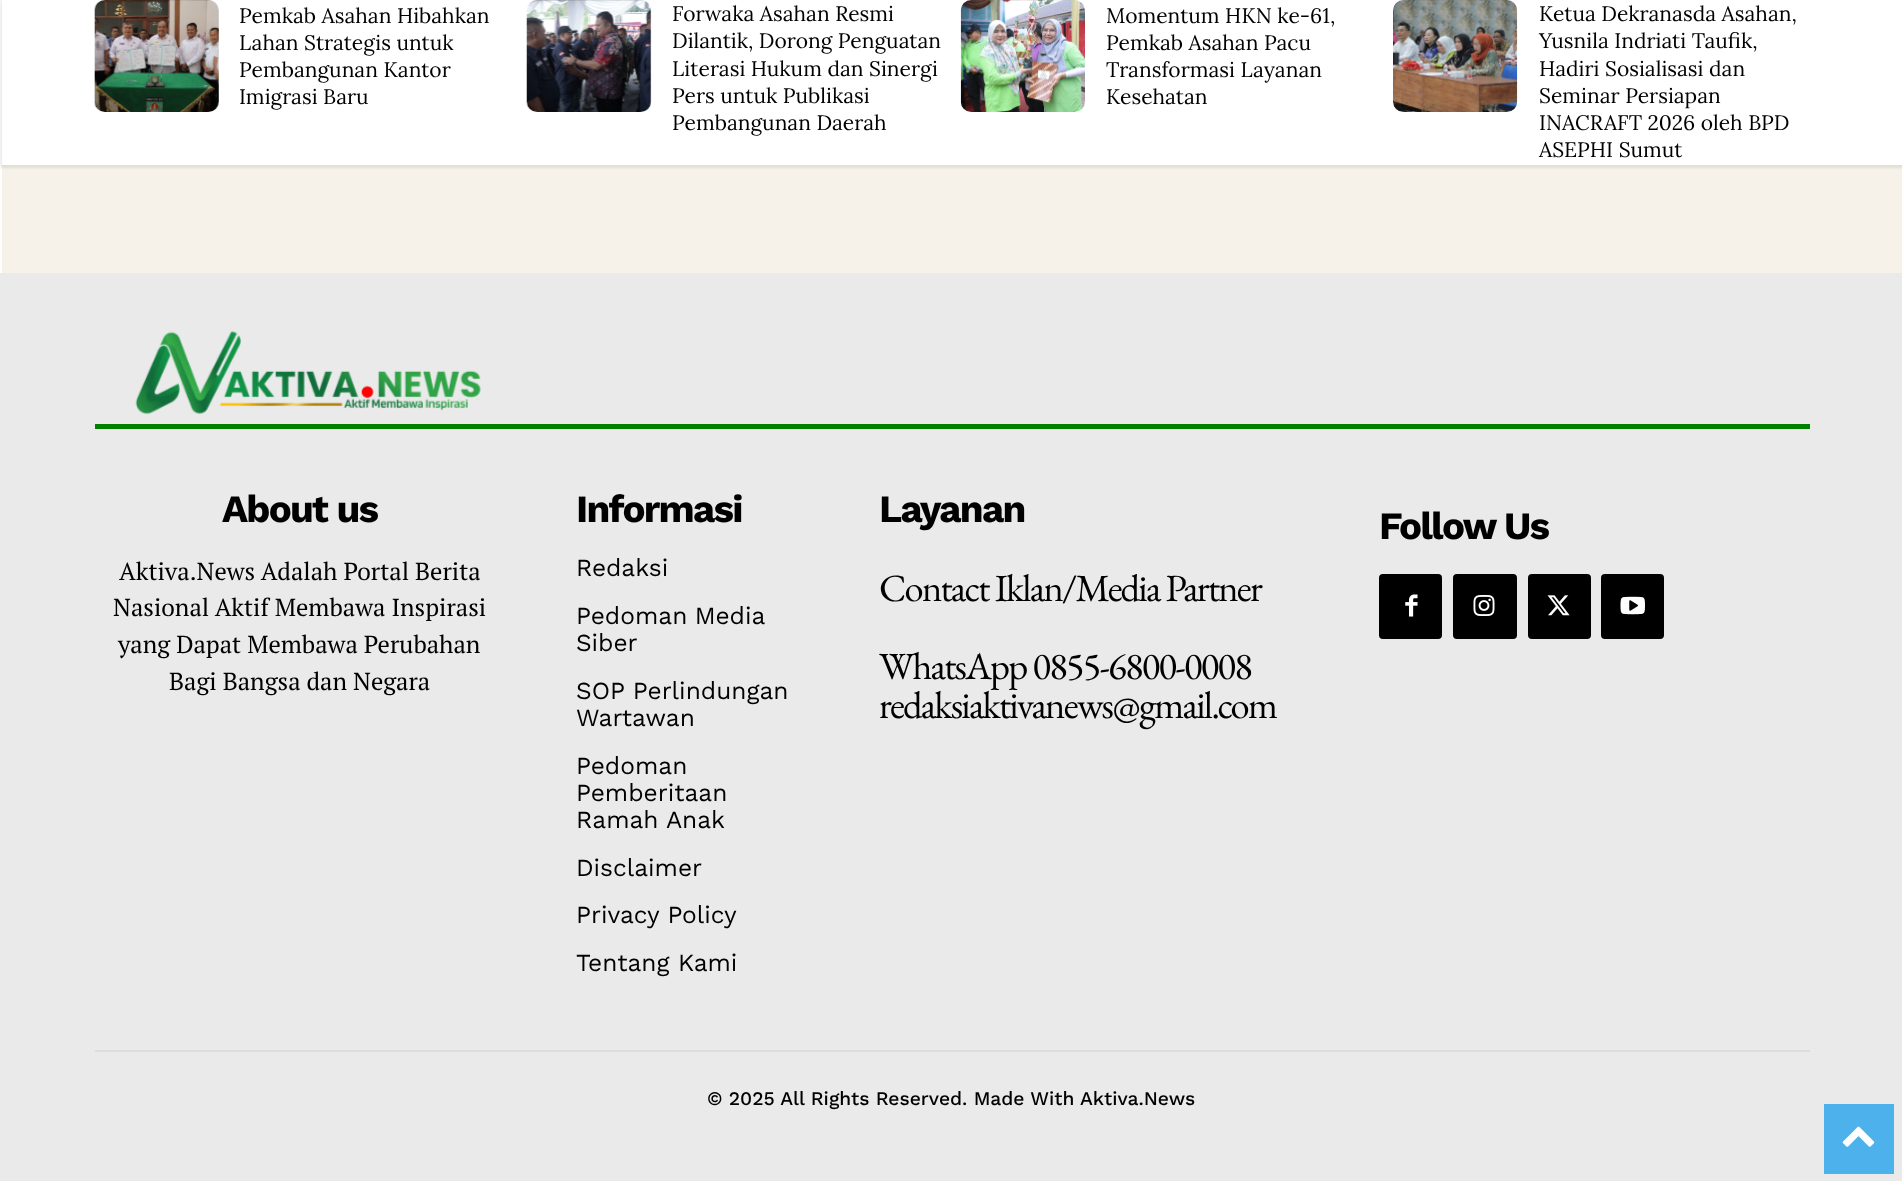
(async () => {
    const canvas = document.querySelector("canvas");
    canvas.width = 1902;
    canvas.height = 1181;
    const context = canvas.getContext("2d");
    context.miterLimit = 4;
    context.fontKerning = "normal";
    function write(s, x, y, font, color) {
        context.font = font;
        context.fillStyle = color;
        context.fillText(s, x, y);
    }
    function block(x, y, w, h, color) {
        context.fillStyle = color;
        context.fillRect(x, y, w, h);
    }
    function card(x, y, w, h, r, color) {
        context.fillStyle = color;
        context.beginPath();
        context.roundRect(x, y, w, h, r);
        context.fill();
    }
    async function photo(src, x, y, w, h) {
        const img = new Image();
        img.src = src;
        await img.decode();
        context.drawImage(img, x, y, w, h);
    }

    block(0, 0, 1902, 1181, "rgb(255, 255, 255)");
    await photo("media/1.png", 94, 0, 125, 112);
    await photo("media/2.png", 526, 0, 126, 112);
    await photo("media/3.png", 960, 0, 125, 112);
    await photo("media/4.png", 1393, 0, 125, 112);
    block(2, 165, 1900, 108, "rgb(246, 242, 234)");
    context.save();
    context.beginPath();
    context.moveTo(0, 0);
    context.lineTo(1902, 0);
    context.lineTo(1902, 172);
    context.lineTo(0, 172);
    context.closePath();
    context.moveTo(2, 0);
    context.lineTo(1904, 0);
    context.lineTo(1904, 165);
    context.lineTo(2, 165);
    context.closePath();
    context.clip("evenodd");
    context.fillStyle = "rgba(0, 0, 0, 0.08)";
    context.filter = "blur(1px)";
    context.beginPath();
    context.rect(0, 0, 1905, 168);
    context.fill();
    context.filter = "none";
    context.restore();
    write("Pemkab Asahan Hibahkan", 239, 23, "21px Lora", "rgb(0, 0, 0)");
    write("Lahan Strategis untuk", 239, 50, "21px Lora", "rgb(0, 0, 0)");
    write("Pembangunan Kantor", 239, 77, "21px Lora", "rgb(0, 0, 0)");
    write("Imigrasi Baru", 239, 104, "21px Lora", "rgb(0, 0, 0)");
    write("Forwaka Asahan Resmi", 672, 21, "21px Lora", "rgb(0, 0, 0)");
    write("Dilantik, Dorong Penguatan", 672, 48, "21px Lora", "rgb(0, 0, 0)");
    write("Literasi Hukum dan Sinergi", 672, 76, "21px Lora", "rgb(0, 0, 0)");
    write("Pers untuk Publikasi", 672, 103, "21px Lora", "rgb(0, 0, 0)");
    write("Pembangunan Daerah", 672, 130, "21px Lora", "rgb(0, 0, 0)");
    write("Momentum HKN ke-61,", 1106, 23, "21px Lora", "rgb(0, 0, 0)");
    write("Pemkab Asahan Pacu", 1106, 50, "21px Lora", "rgb(0, 0, 0)");
    write("Transformasi Layanan", 1106, 77, "21px Lora", "rgb(0, 0, 0)");
    write("Kesehatan", 1106, 104, "21px Lora", "rgb(0, 0, 0)");
    write("Ketua Dekranasda Asahan,", 1539, 21, "21px Lora", "rgb(0, 0, 0)");
    write("Yusnila Indriati Taufik,", 1539, 48, "21px Lora", "rgb(0, 0, 0)");
    write("Hadiri Sosialisasi dan", 1539, 76, "21px Lora", "rgb(0, 0, 0)");
    write("Seminar Persiapan", 1539, 103, "21px Lora", "rgb(0, 0, 0)");
    write("INACRAFT 2026 oleh BPD", 1539, 130, "21px Lora", "rgb(0, 0, 0)");
    write("ASEPHI Sumut", 1539, 157, "21px Lora", "rgb(0, 0, 0)");
    block(0, 273, 1902, 908, "rgb(234, 234, 234)");
    block(95, 424, 1715, 5, "rgb(0, 128, 0)");
    await photo("media/5.png", 135, 330, 346, 85);
    context.letterSpacing = "-1.75px";
    write("About us", 222, 522, "bold 38.5px Work Sans", "rgb(0, 0, 0)");
    context.letterSpacing = "0px";
    write("Aktiva.News Adalah Portal Berita", 119, 580, "24.5px PT Serif", "rgb(0, 0, 0)");
    write("Nasional Aktif Membawa Inspirasi", 113, 616, "24.5px PT Serif", "rgb(0, 0, 0)");
    write("yang Dapat Membawa Perubahan", 118, 653, "24.5px PT Serif", "rgb(0, 0, 0)");
    write("Bagi Bangsa dan Negara", 169, 690, "24.5px PT Serif", "rgb(0, 0, 0)");
    context.letterSpacing = "-1.75px";
    write("Informasi", 576, 522, "bold 38.5px Work Sans", "rgb(0, 0, 0)");
    context.letterSpacing = "0px";
    write("Redaksi", 576, 576, "24.5px Work Sans", "rgb(0, 0, 0)");
    context.wordSpacing = "-1px";
    write("Pedoman Media", 576, 624, "24.5px Work Sans", "rgb(0, 0, 0)");
    context.wordSpacing = "0px";
    write("Siber", 576, 651, "24.5px Work Sans", "rgb(0, 0, 0)");
    write("SOP Perlindungan", 576, 699, "24.5px Work Sans", "rgb(0, 0, 0)");
    write("Wartawan", 576, 726, "24.5px Work Sans", "rgb(0, 0, 0)");
    write("Pedoman", 576, 774, "24.5px Work Sans", "rgb(0, 0, 0)");
    write("Pemberitaan", 576, 801, "24.5px Work Sans", "rgb(0, 0, 0)");
    write("Ramah Anak", 576, 828, "24.5px Work Sans", "rgb(0, 0, 0)");
    write("Disclaimer", 576, 876, "24.5px Work Sans", "rgb(0, 0, 0)");
    write("Privacy Policy", 576, 923, "24.5px Work Sans", "rgb(0, 0, 0)");
    write("Tentang Kami", 576, 971, "24.5px Work Sans", "rgb(0, 0, 0)");
    context.letterSpacing = "-1.75px";
    write("Layanan", 879, 522, "bold 38.5px Work Sans", "rgb(0, 0, 0)");
    write("Contact Iklan/Media Partner", 879, 601, "38.5px EB Garamond", "rgb(0, 0, 0)");
    write("WhatsApp 0855-6800-0008", 879, 679, "38.5px EB Garamond", "rgb(0, 0, 0)");
    write("redaksiaktivanews@gmail.com", 879, 718, "38.5px EB Garamond", "rgb(0, 0, 0)");
    write("Follow Us", 1379, 539, "bold 38.5px Work Sans", "rgb(0, 0, 0)");
    card(1379, 574, 63, 65, 4, "rgb(0, 0, 0)");
    await photo("media/6.png", 1405, 594, 13, 23);
    card(1453, 574, 64, 65, 4, "rgb(0, 0, 0)");
    await photo("media/7.png", 1473, 595, 22, 21);
    card(1528, 574, 63, 65, 4, "rgb(0, 0, 0)");
    await photo("media/8.png", 1547, 595, 23, 21);
    card(1601, 574, 63, 65, 4, "rgb(0, 0, 0)");
    await photo("media/9.png", 1620, 596, 25, 19);
    block(95, 1050, 1715, 2, "rgb(221, 221, 221)");
    context.letterSpacing = "0px";
    write("© 2025 All Rights Reserved. Made With Aktiva.News", 707, 1105, "500 19.25px Work Sans", "rgb(0, 0, 0)");
    block(1824, 1104, 70, 70, "rgb(77, 178, 236)");
    await photo("media/10.png", 1842, 1126, 33, 21);
})();
